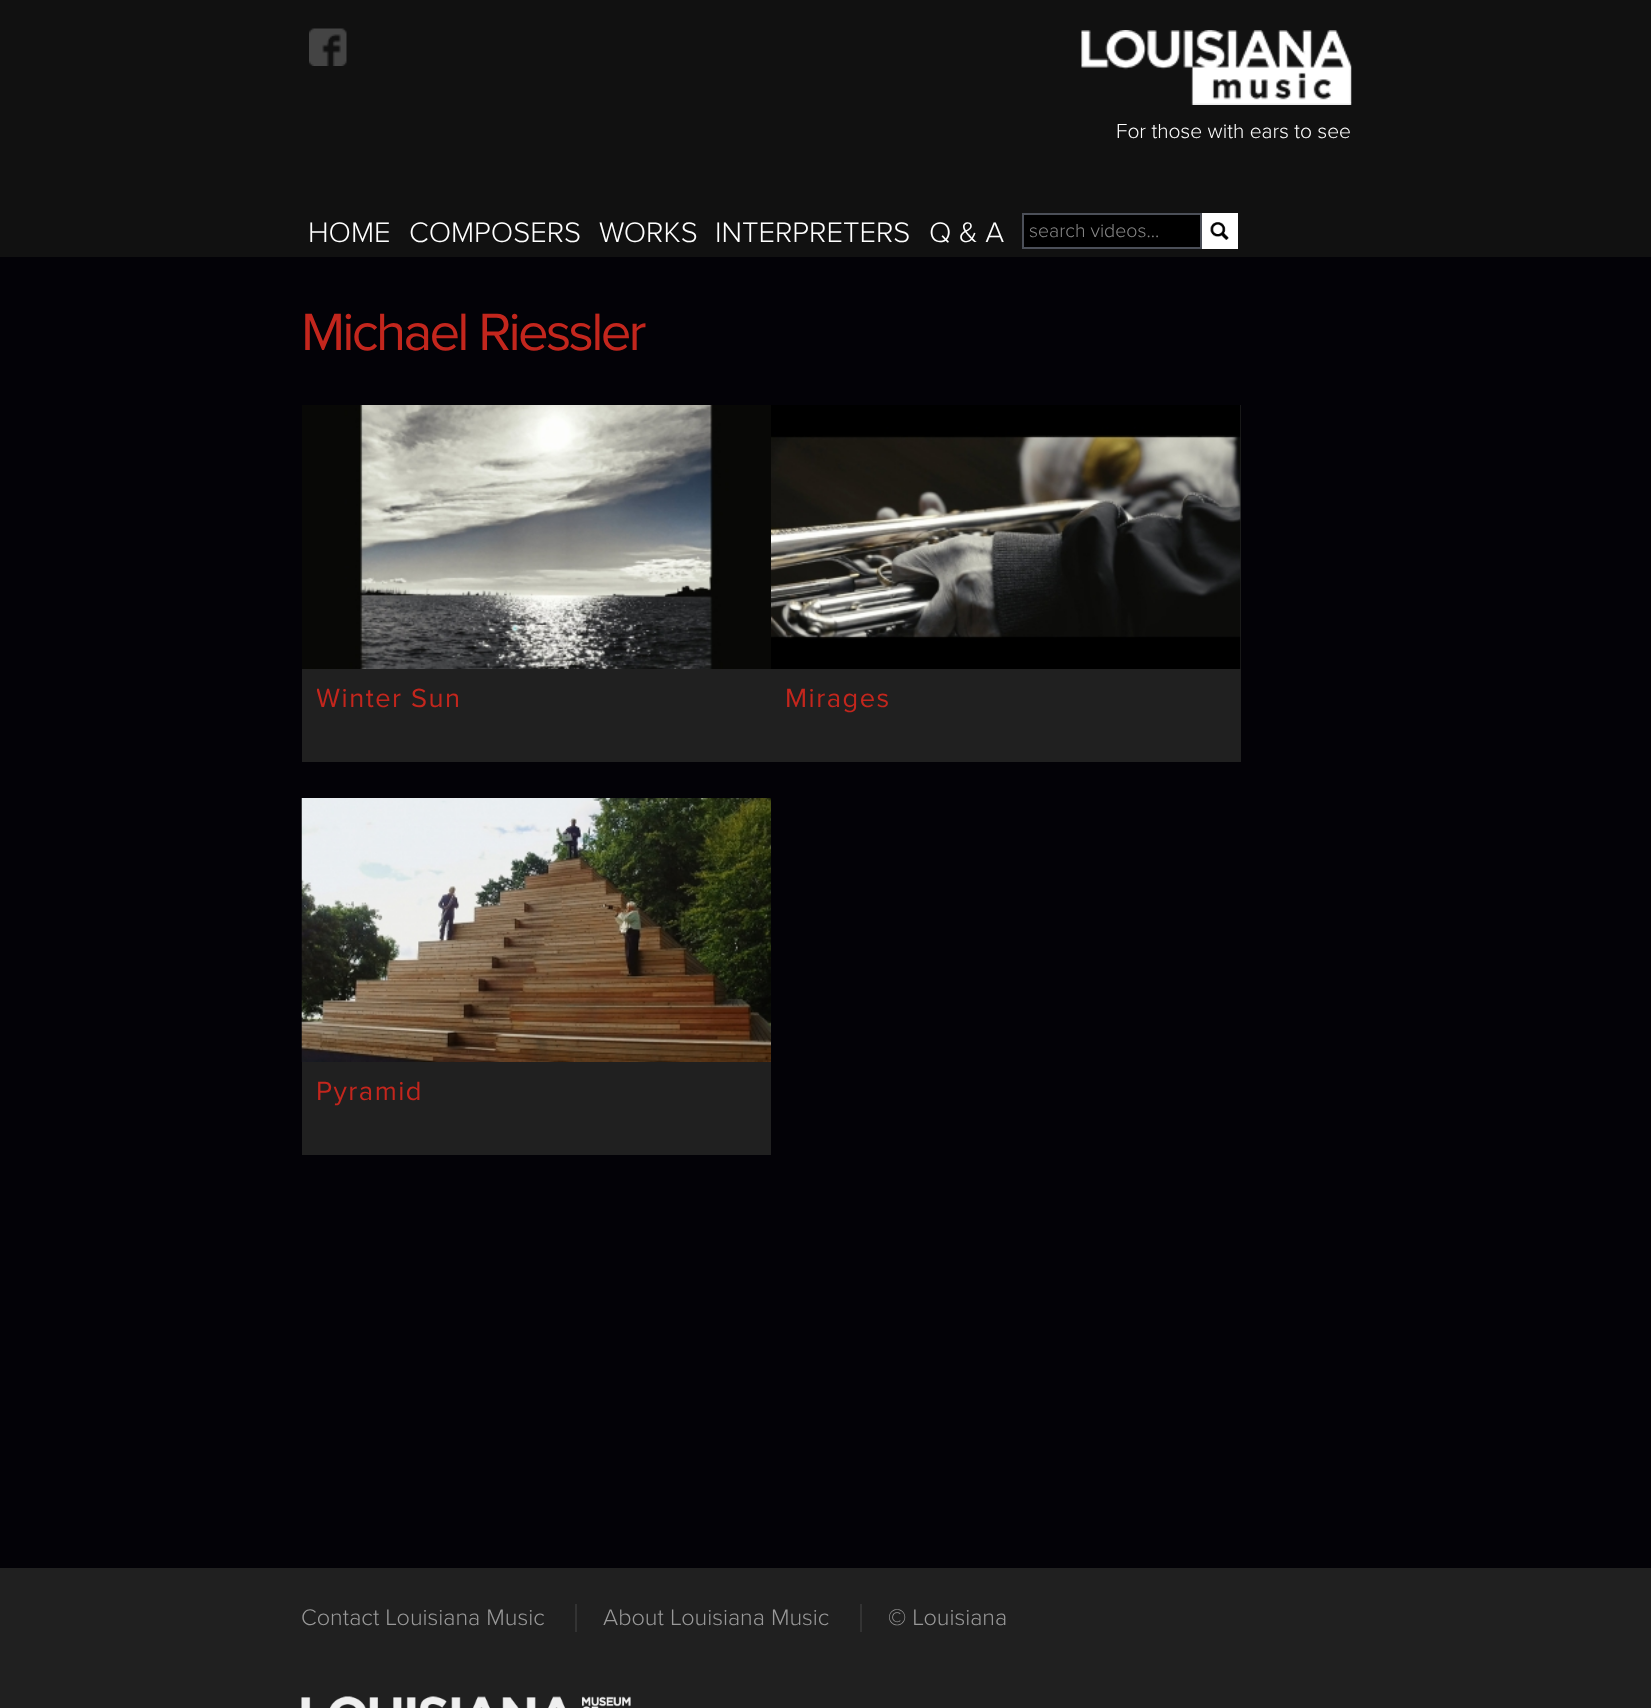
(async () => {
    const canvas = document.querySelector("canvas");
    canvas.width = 1651;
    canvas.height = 1708;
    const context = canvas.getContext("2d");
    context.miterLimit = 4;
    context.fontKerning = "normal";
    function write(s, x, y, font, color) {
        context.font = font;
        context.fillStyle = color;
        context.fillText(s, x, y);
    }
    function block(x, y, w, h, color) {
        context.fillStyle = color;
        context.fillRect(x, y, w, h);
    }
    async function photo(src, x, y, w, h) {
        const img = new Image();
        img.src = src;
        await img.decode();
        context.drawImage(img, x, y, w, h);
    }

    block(0, 0, 1651, 1708, "rgb(3, 2, 7)");
    block(0, 0, 1651, 257, "rgb(17, 17, 17)");
    await photo("media/1.png", 309, 28, 38, 38);
    await photo("media/2.png", 1081, 30, 271, 75);
    write("For those with ears to see", 1116, 138, "300 21px Proxima Nova", "rgb(255, 255, 255)");
    write("HOME", 308, 242, "300 29.25px Proxima Nova", "rgb(255, 255, 255)");
    write("COMPOSERS", 409, 242, "300 29.25px Proxima Nova", "rgb(255, 255, 255)");
    write("WORKS", 599, 242, "300 29.25px Proxima Nova", "rgb(255, 255, 255)");
    write("INTERPRETERS", 715, 242, "300 29.25px Proxima Nova", "rgb(255, 255, 255)");
    write("Q & A", 929, 242, "300 29.25px Proxima Nova", "rgb(255, 255, 255)");
    context.fillStyle = "rgb(0, 0, 0)";
    context.beginPath();
    context.rect(1023, 214, 178, 34);
    context.fill();
    context.strokeStyle = "rgb(75, 79, 88)";
    context.lineWidth = 2;
    context.stroke();
    write("search videos...", 1029, 237, "300 19.5px Proxima Nova", "rgb(136, 136, 136)");
    block(1202, 213, 36, 36, "rgb(255, 255, 255)");
    await photo("media/3.png", 1210, 222, 19, 18);
    context.letterSpacing = "-2.75px";
    write("Michael Riessler", 301, 350, "54.5px Proxima Nova", "rgb(195, 38, 29)");
    block(302, 669, 469, 93, "rgb(32, 32, 32)");
    await photo("media/4.png", 302, 405, 469, 264);
    context.save();
    context.beginPath();
    context.rect(317, 684, 439, 65);
    context.clip();
    context.letterSpacing = "1.5px";
    write("Winter Sun", 316, 707, "27.25px Proxima Nova", "rgb(195, 38, 29)");
    context.restore();
    block(771, 405, 470, 357, "rgb(32, 32, 32)");
    await photo("media/5.png", 771, 405, 470, 264);
    context.letterSpacing = "1.5px";
    write("Mirages", 785, 707, "27.25px Proxima Nova", "rgb(195, 38, 29)");
    block(302, 1062, 469, 93, "rgb(32, 32, 32)");
    await photo("media/6.png", 301, 798, 470, 264);
    write("Pyramid", 316, 1100, "27.25px Proxima Nova", "rgb(195, 38, 29)");
    block(0, 1568, 1651, 140, "rgb(32, 32, 32)");
    block(575, 1604, 2, 28, "rgb(51, 51, 51)");
    context.letterSpacing = "0px";
    write("Contact Louisiana Music", 301, 1625, "300 23.4px Proxima Nova", "rgb(153, 153, 153)");
    block(860, 1604, 2, 28, "rgb(51, 51, 51)");
    write("About Louisiana Music", 603, 1625, "300 23.4px Proxima Nova", "rgb(153, 153, 153)");
    write("© Louisiana", 888, 1625, "300 23.4px Proxima Nova", "rgb(153, 153, 153)");
    await photo("media/7.png", 301, 1696, 330, 12);
})();
